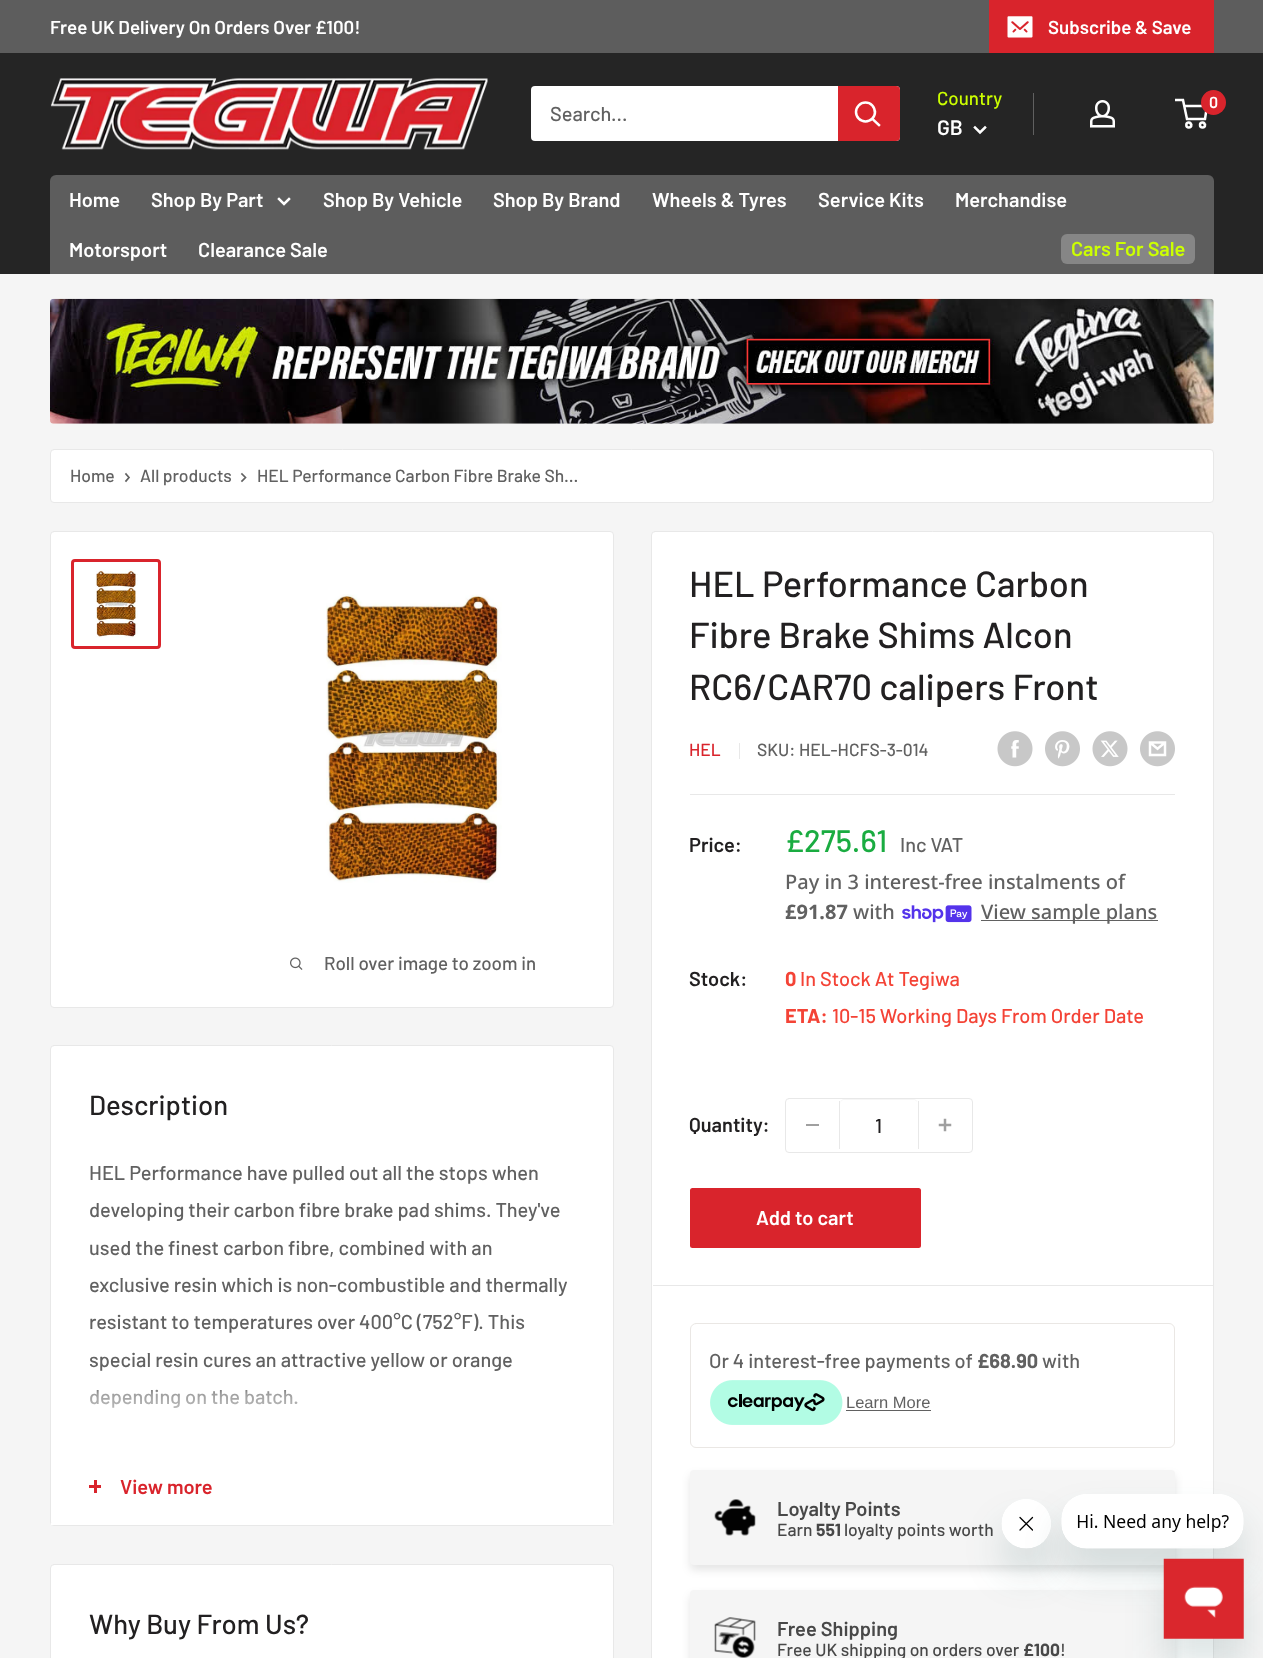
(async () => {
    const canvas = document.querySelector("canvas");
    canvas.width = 1263;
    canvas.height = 1658;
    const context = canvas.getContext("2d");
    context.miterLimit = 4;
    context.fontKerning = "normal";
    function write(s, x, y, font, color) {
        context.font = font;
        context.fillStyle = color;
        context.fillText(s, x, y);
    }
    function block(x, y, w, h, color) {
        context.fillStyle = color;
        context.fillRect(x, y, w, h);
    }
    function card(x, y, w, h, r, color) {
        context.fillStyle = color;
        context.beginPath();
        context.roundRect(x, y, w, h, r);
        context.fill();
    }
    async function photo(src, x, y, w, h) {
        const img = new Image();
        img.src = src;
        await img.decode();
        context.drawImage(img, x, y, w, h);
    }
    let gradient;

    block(0, 0, 1263, 1658, "rgb(245, 245, 245)");
    block(0, 0, 1263, 53, "rgb(93, 93, 93)");
    write("Free UK Delivery On Orders Over £100!", 50, 34, "600 18.75px Barlow", "rgb(255, 255, 255)");
    block(989, 0, 225, 53, "rgb(217, 36, 44)");
    await photo("media/1.png", 1007, 16, 26, 22);
    write("Subscribe & Save", 1048, 34, "600 18.75px Barlow", "rgb(255, 255, 255)");
    block(0, 53, 1263, 221, "rgb(37, 37, 37)");
    await photo("media/2.png", 50, 78, 438, 72);
    card(531, 86, 369, 55, 4, "rgb(255, 255, 255)");
    write("Search...", 550, 121, "500 20px Barlow", "rgb(97, 97, 97)");
    context.fillStyle = "rgb(217, 36, 44)";
    context.beginPath();
    context.roundRect(838, 86, 62, 55, [0, 4, 4, 0]);
    context.fill();
    context.beginPath();
    context.moveTo(879, 125);
    context.lineTo(872.5, 119);
    context.strokeStyle = "rgb(255, 255, 255)";
    context.lineWidth = 2.5;
    context.lineCap = "square";
    context.stroke();
    context.beginPath();
    context.arc(865.5, 112, 9.5, 0, Math.PI * 2);
    context.stroke();
    write("Country", 937, 105, "500 18.75px Barlow", "rgb(204, 255, 1)");
    write("GB", 937, 135, "600 21px Barlow", "rgb(255, 255, 255)");
    context.beginPath();
    context.moveTo(985, 127.5);
    context.lineTo(980, 132.5);
    context.lineTo(975, 127.5);
    context.stroke();
    block(1033, 93, 1, 42, "rgb(96, 96, 96)");
    await photo("media/3.png", 1090, 100, 25, 28);
    context.beginPath();
    context.arc(1188.8, 125, 2.5, 0, Math.PI * 2);
    context.stroke();
    context.beginPath();
    context.arc(1202.5, 125, 2.5, 0, Math.PI * 2);
    context.stroke();
    context.beginPath();
    context.moveTo(1184, 106);
    context.lineTo(1207, 106);
    context.lineTo(1205, 119);
    context.lineTo(1187, 119);
    context.lineTo(1183, 100);
    context.lineTo(1175, 100);
    context.lineCap = "butt";
    context.stroke();
    context.fillStyle = "rgb(217, 36, 44)";
    context.beginPath();
    context.arc(1213.5, 102.5, 12.5, 0, Math.PI * 2);
    context.fill();
    write("0", 1209, 108, "600 16px Barlow", "rgb(255, 255, 255)");
    context.fillStyle = "rgb(93, 93, 93)";
    context.beginPath();
    context.roundRect(50, 175, 1164, 99, [6, 6, 0, 0]);
    context.fill();
    write("Home", 69, 207, "600 20px Barlow", "rgb(255, 255, 255)");
    write("Shop By Part", 151, 207, "600 20px Barlow", "rgb(255, 255, 255)");
    context.beginPath();
    context.moveTo(289, 199);
    context.lineTo(284, 204);
    context.lineTo(279, 199);
    context.lineCap = "square";
    context.stroke();
    write("Shop By Vehicle", 323, 207, "600 20px Barlow", "rgb(255, 255, 255)");
    write("Shop By Brand", 493, 207, "600 20px Barlow", "rgb(255, 255, 255)");
    write("Wheels & Tyres", 652, 207, "600 20px Barlow", "rgb(255, 255, 255)");
    write("Service Kits", 818, 207, "600 20px Barlow", "rgb(255, 255, 255)");
    write("Merchandise", 955, 207, "600 20px Barlow", "rgb(255, 255, 255)");
    write("Motorsport", 69, 257, "600 20px Barlow", "rgb(255, 255, 255)");
    write("Clearance Sale", 198, 257, "600 20px Barlow", "rgb(255, 255, 255)");
    card(1061, 234, 134, 30, 6, "rgb(134, 134, 134)");
    write("Cars For Sale", 1071, 256, "600 20px Barlow", "rgb(204, 255, 1)");
    await photo("media/4.png", 50, 298, 1164, 126);
    context.fillStyle = "rgb(255, 255, 255)";
    context.beginPath();
    context.roundRect(50.5, 449.5, 1163, 53, 3.5);
    context.fill();
    context.strokeStyle = "rgb(232, 232, 232)";
    context.lineWidth = 1;
    context.stroke();
    write("Home", 70, 482, "500 17.5px Barlow", "rgb(97, 97, 97)");
    context.beginPath();
    context.moveTo(126, 474);
    context.lineTo(129, 477.5);
    context.lineTo(126, 481);
    context.strokeStyle = "rgb(97, 97, 97)";
    context.lineWidth = 1.7;
    context.stroke();
    write("All products", 140, 482, "500 17.5px Barlow", "rgb(97, 97, 97)");
    context.beginPath();
    context.moveTo(242, 474);
    context.lineTo(245.5, 477.5);
    context.lineTo(242, 481);
    context.stroke();
    write("HEL Performance Carbon Fibre Brake Sh...", 257, 482, "500 17.5px Barlow", "rgb(97, 97, 97)");
    context.fillStyle = "rgb(255, 255, 255)";
    context.beginPath();
    context.roundRect(50.5, 531.5, 563, 476, 3.5);
    context.fill();
    context.strokeStyle = "rgb(232, 232, 232)";
    context.lineWidth = 1;
    context.stroke();
    context.beginPath();
    context.roundRect(72.5, 560.5, 87, 87, 2.5);
    context.strokeStyle = "rgb(217, 36, 44)";
    context.lineWidth = 3;
    context.stroke();
    await photo("media/5.png", 95, 569, 43, 69);
    await photo("media/6.png", 326, 594, 176, 289);
    await photo("media/7.png", 290, 957, 13, 13);
    write("Roll over image to zoom in", 324, 970, "500 18.75px Barlow", "rgb(97, 97, 97)");
    context.fillStyle = "rgb(255, 255, 255)";
    context.beginPath();
    context.roundRect(651.5, 531.5, 562, 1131, 3.5);
    context.fill();
    context.strokeStyle = "rgb(232, 232, 232)";
    context.lineWidth = 1;
    context.stroke();
    write("HEL Performance Carbon", 689, 597, "500 36.25px Barlow", "rgb(34, 32, 33)");
    write("Fibre Brake Shims Alcon", 689, 648, "500 36.25px Barlow", "rgb(34, 32, 33)");
    write("RC6/CAR70 calipers Front", 689, 700, "500 36.25px Barlow", "rgb(34, 32, 33)");
    write("HEL", 689, 756, "500 17.5px Barlow", "rgb(217, 36, 44)");
    block(739, 743, 1, 16, "rgb(232, 232, 232)");
    write("SKU: HEL-HCFS-3-014", 757, 756, "500 17.5px Barlow", "rgb(97, 97, 97)");
    await photo("media/8.png", 997, 731, 36, 36);
    await photo("media/9.png", 1045, 731, 35, 36);
    await photo("media/10.png", 1092, 731, 36, 36);
    await photo("media/11.png", 1140, 731, 35, 36);
    block(690, 794, 485, 1, "rgb(232, 232, 232)");
    write("Price:", 689, 852, "600 20px Barlow", "rgb(34, 32, 33)");
    write("£275.61", 785, 852, "500 31px Barlow", "rgb(26, 172, 65)");
    write("Inc VAT", 900, 852, "500 20px Barlow", "rgb(97, 97, 97)");
    write("Pay in 3 interest-free instalments of", 785, 889, "500 20px Noto Sans", "rgb(97, 97, 97)");
    write("£91.87", 785, 919, "bold 20px Noto Sans", "rgb(97, 97, 97)");
    write("with", 853, 919, "500 20px Noto Sans", "rgb(97, 97, 97)");
    await photo("media/12.png", 902, 905, 70, 18);
    block(981, 920, 177, 1, "rgb(97, 97, 97)");
    write("View sample plans", 981, 919, "500 20px Noto Sans", "rgb(97, 97, 97)");
    write("Stock:", 689, 986, "600 20px Barlow", "rgb(34, 32, 33)");
    write("0", 785, 986, "bold 20px Barlow", "rgb(244, 67, 54)");
    write("In Stock At Tegiwa", 800, 986, "500 20px Barlow", "rgb(244, 67, 54)");
    write("ETA:", 785, 1023, "bold 20px Barlow", "rgb(244, 67, 54)");
    write("10-15 Working Days From Order Date", 832, 1023, "500 20px Barlow", "rgb(244, 67, 54)");
    write("Quantity:", 689, 1132, "600 20px Barlow", "rgb(34, 32, 33)");
    context.beginPath();
    context.roundRect(785.5, 1098.5, 187, 54, 3.5);
    context.stroke();
    block(806, 1124, 13, 2, "rgb(160, 160, 160)");
    context.fillStyle = "rgb(246, 246, 246)";
    context.beginPath();
    context.moveTo(844, 1100);
    context.lineTo(915, 1100);
    context.lineTo(917, 1102);
    context.bezierCurveTo(917, 1100, 915, 1099, 914, 1099);
    context.lineTo(844, 1099);
    context.bezierCurveTo(842, 1099, 840, 1101, 840, 1104);
    context.lineTo(840, 1105);
    context.bezierCurveTo(840, 1102, 842, 1100, 844, 1100);
    context.closePath();
    context.fill();
    block(918, 1101, 1, 48, "rgb(232, 232, 232)");
    block(839, 1101, 1, 48, "rgb(232, 232, 232)");
    write("1", 875, 1133, "500 20px Barlow", "rgb(34, 32, 33)");
    await photo("media/13.png", 938, 1118, 14, 14);
    card(690, 1188, 231, 60, 2.5, "rgb(217, 36, 44)");
    write("Add to cart", 756, 1225, "600 20px Barlow", "rgb(255, 255, 255)");
    block(653, 1285, 560, 1, "rgb(232, 232, 232)");
    context.beginPath();
    context.roundRect(690.5, 1323.5, 484, 124, 5.5);
    context.strokeStyle = "rgb(234, 231, 228)";
    context.stroke();
    write("Or 4 interest-free payments of", 709, 1368, "500 20px Barlow", "rgb(97, 97, 97)");
    write("£68.90", 977, 1368, "bold 20px Barlow", "rgb(97, 97, 97)");
    write("with", 1042, 1368, "500 20px Barlow", "rgb(97, 97, 97)");
    await photo("media/14.png", 710, 1380, 133, 45);
    write("Learn More", 846, 1408, "16.5px Liberation Sans", "rgb(97, 97, 97)");
    block(846, 1410, 85, 1, "rgb(97, 97, 97)");
    context.fillStyle = "rgba(0, 0, 0, 0.1)";
    context.filter = "blur(4px)";
    context.beginPath();
    context.roundRect(690, 1475, 485, 95, 4);
    context.fill();
    context.filter = "none";
    card(690, 1470, 485, 95, 4, "rgb(245, 245, 245)");
    await photo("media/15.png", 714, 1499, 42, 37);
    write("Loyalty Points", 777, 1516, "600 20px Barlow", "rgb(72, 72, 72)");
    write("Earn", 777, 1536, "500 17.5px Barlow", "rgb(72, 72, 72)");
    write("551", 816, 1536, "bold 17.5px Barlow", "rgb(72, 72, 72)");
    write("loyalty points worth", 844, 1536, "500 17.5px Barlow", "rgb(72, 72, 72)");
    context.fillStyle = "rgba(0, 0, 0, 0.1)";
    context.filter = "blur(4px)";
    context.beginPath();
    context.roundRect(690, 1595, 485, 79, 4);
    context.fill();
    context.filter = "none";
    card(690, 1590, 485, 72, 4, "rgb(245, 245, 245)");
    await photo("media/16.png", 714, 1617, 42, 41);
    write("Free Shipping", 777, 1636, "600 20px Barlow", "rgb(72, 72, 72)");
    write("Free UK shipping on orders over", 777, 1656, "500 17.5px Barlow", "rgb(72, 72, 72)");
    write("£100", 1023, 1656, "bold 17.5px Barlow", "rgb(72, 72, 72)");
    write("!", 1060, 1656, "500 17.5px Barlow", "rgb(72, 72, 72)");
    context.fillStyle = "rgb(255, 255, 255)";
    context.beginPath();
    context.roundRect(50.5, 1045.5, 563, 480, 3.5);
    context.fill();
    context.strokeStyle = "rgb(232, 232, 232)";
    context.stroke();
    write("Description", 89, 1115, "500 27.5px Barlow", "rgb(34, 32, 33)");
    write("HEL Performance have pulled out all the stops when", 89, 1180, "500 20px Barlow", "rgb(97, 97, 97)");
    write("developing their carbon fibre brake pad shims. They've", 89, 1217, "500 20px Barlow", "rgb(97, 97, 97)");
    write("used the finest carbon fibre, combined with an", 89, 1255, "500 20px Barlow", "rgb(97, 97, 97)");
    write("exclusive resin which is non-combustible and thermally", 89, 1292, "500 20px Barlow", "rgb(97, 97, 97)");
    write("resistant to temperatures over 400°C (752°F). This", 89, 1329, "500 20px Barlow", "rgb(97, 97, 97)");
    write("special resin cures an attractive yellow or orange", 89, 1367, "500 20px Barlow", "rgb(97, 97, 97)");
    write("depending on the batch.", 89, 1404, "500 20px Barlow", "rgb(97, 97, 97)");
    block(51, 1523, 562, 2, "rgb(255, 255, 255)");
    gradient = context.createLinearGradient(332, 1385, 332, 1448);
    gradient.addColorStop(0, "rgba(255, 255, 255, 0)");
    gradient.addColorStop(0.15, "rgba(255, 255, 255, 0.4)");
    gradient.addColorStop(1, "rgb(255, 255, 255)");
    context.fillStyle = gradient;
    context.fillRect(89, 1389, 208, 19);
    block(94, 1480, 3, 13, "rgb(217, 36, 44)");
    block(89, 1485, 12, 3, "rgb(217, 36, 44)");
    write("View more", 120, 1494, "600 20px Barlow", "rgb(217, 36, 44)");
    context.fillStyle = "rgb(255, 255, 255)";
    context.beginPath();
    context.roundRect(50.5, 1564.5, 563, 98, 3.5);
    context.fill();
    context.stroke();
    write("Why Buy From Us?", 89, 1634, "500 27.5px Barlow", "rgb(34, 32, 33)");
    context.fillStyle = "rgba(23, 73, 77, 0.15)";
    context.filter = "blur(19px)";
    context.beginPath();
    context.roundRect(1001, 1524, 50, 50, 25);
    context.fill();
    context.filter = "none";
    await photo("media/18.png", 1001, 1499, 50, 50);
    context.filter = "blur(19px)";
    context.beginPath();
    context.roundRect(1061, 1519, 183, 55, 25);
    context.fill();
    context.filter = "none";
    await photo("media/17.png", 1061, 1494, 183, 55);
    context.filter = "blur(19px)";
    context.beginPath();
    context.rect(1164, 1584, 80, 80);
    context.fill();
    context.filter = "none";
    await photo("media/19.png", 1163, 1558, 81, 81);
})();
